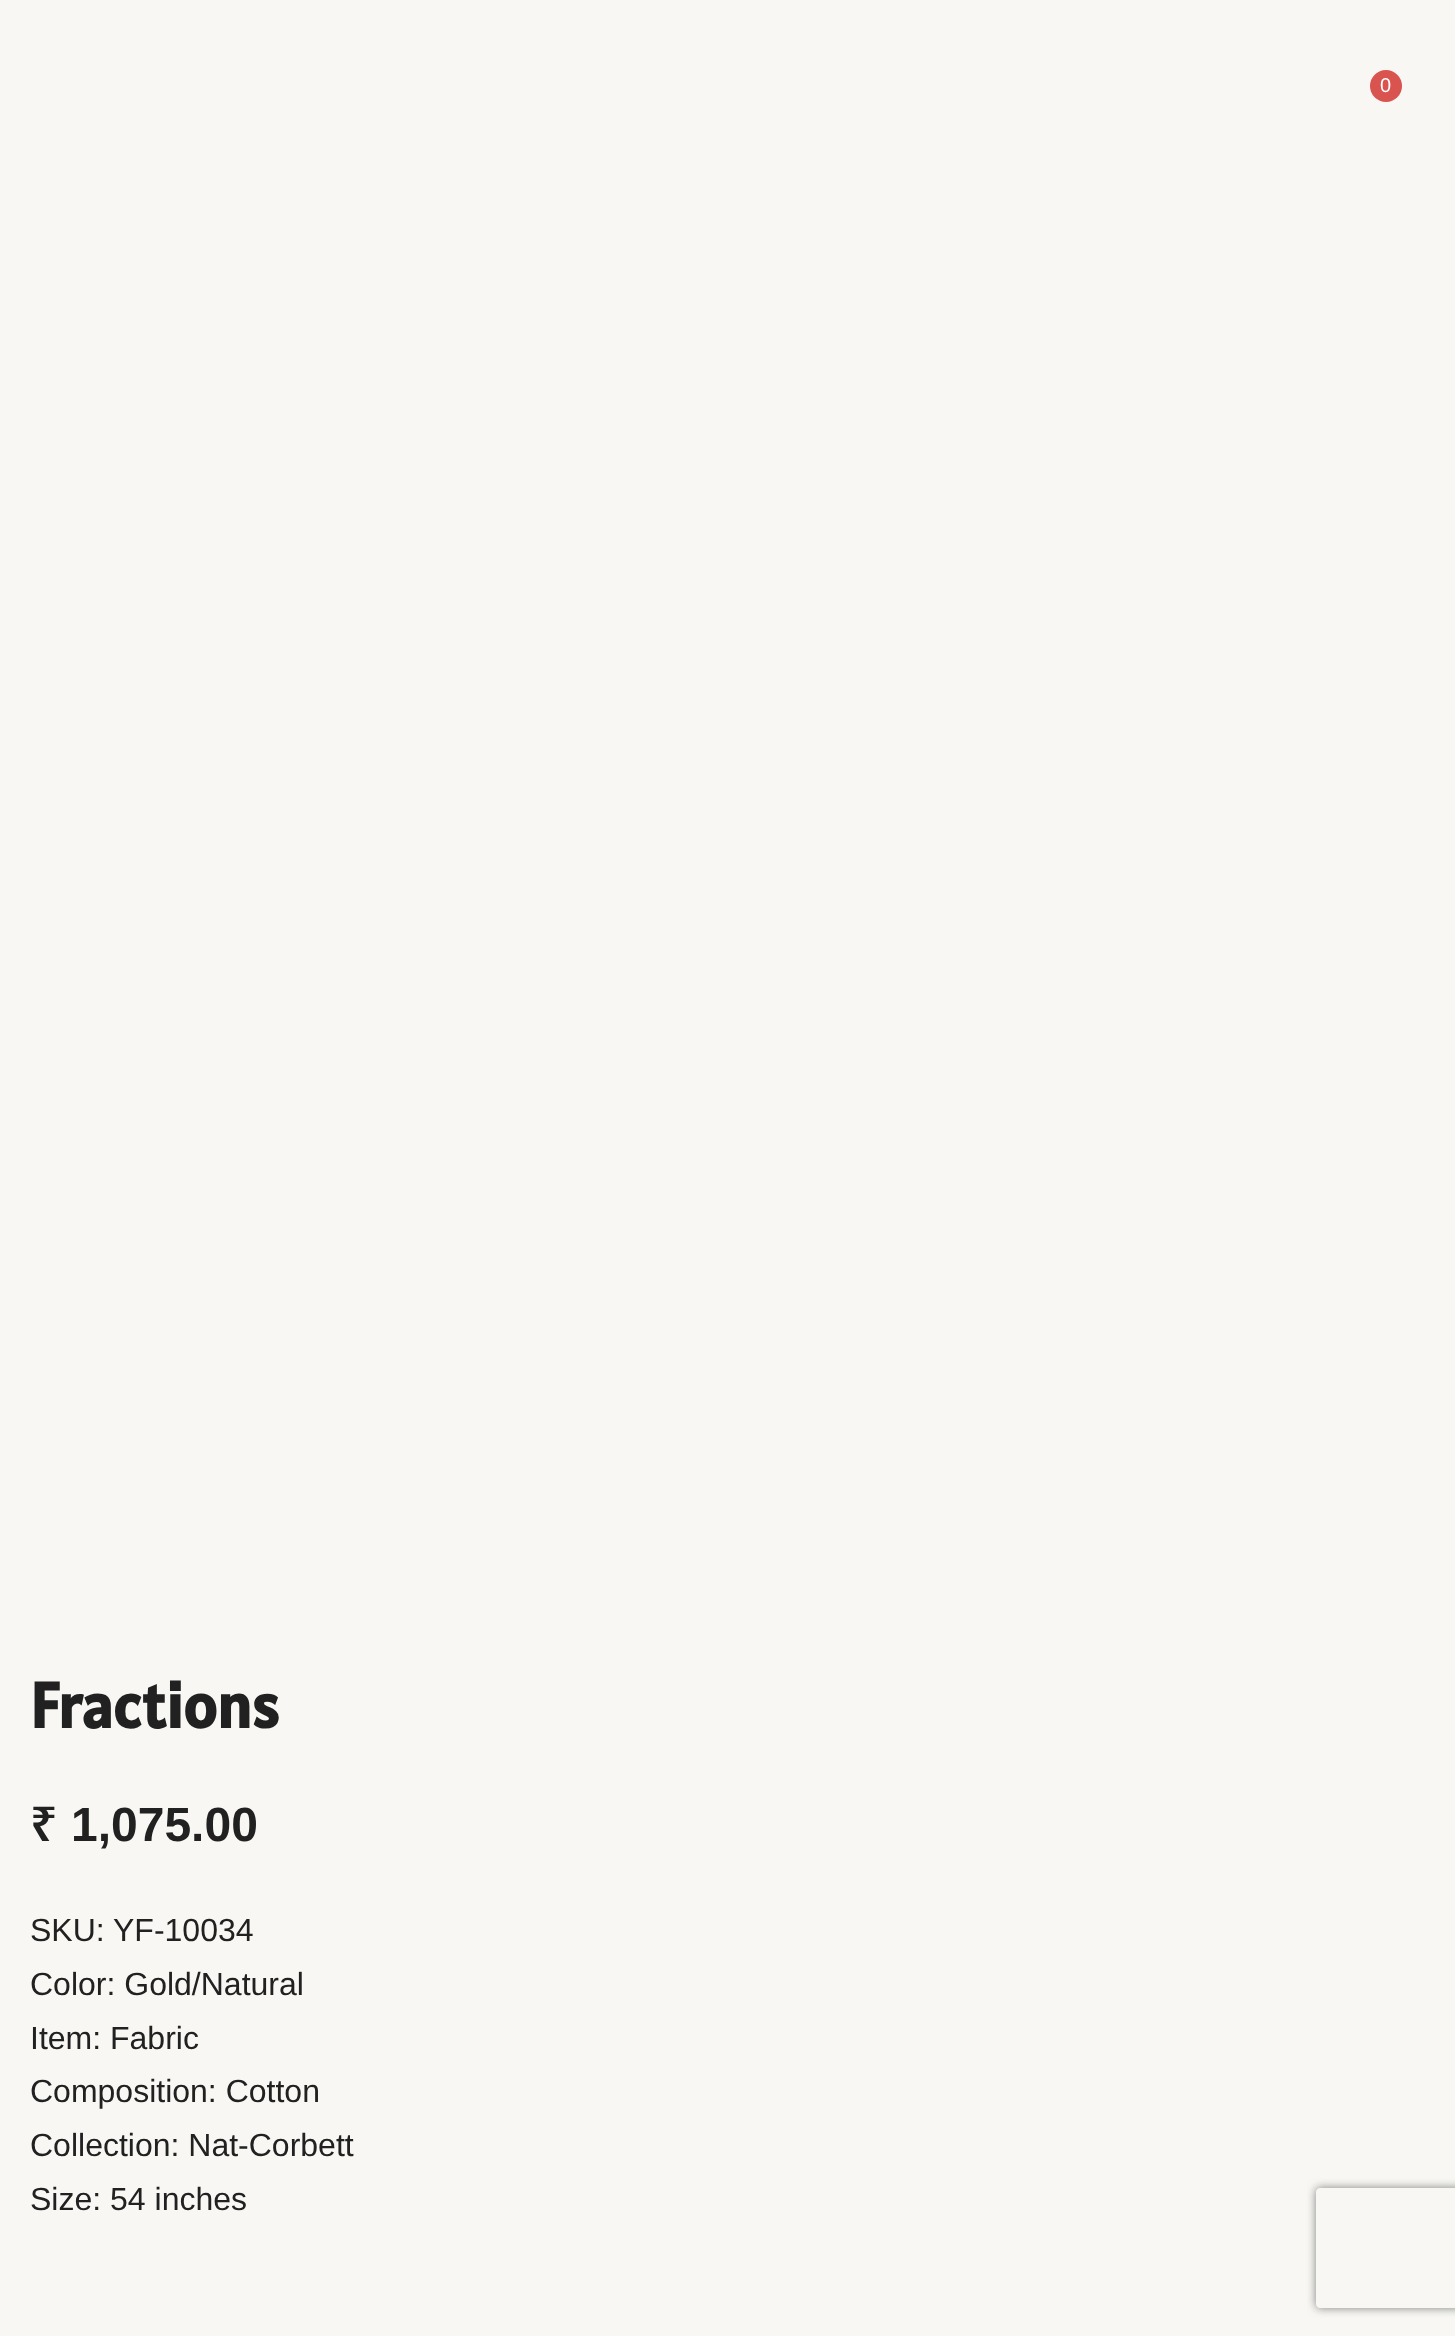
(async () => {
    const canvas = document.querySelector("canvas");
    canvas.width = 1455;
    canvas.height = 2336;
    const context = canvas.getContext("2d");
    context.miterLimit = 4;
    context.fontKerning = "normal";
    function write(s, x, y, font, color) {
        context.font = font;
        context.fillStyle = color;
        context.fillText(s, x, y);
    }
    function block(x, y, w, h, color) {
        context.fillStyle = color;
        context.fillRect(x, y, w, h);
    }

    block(0, 0, 1455, 2336, "rgb(248, 247, 244)");
    context.fillStyle = "rgb(217, 83, 79)";
    context.beginPath();
    context.arc(1386, 86, 16, 0, Math.PI * 2);
    context.fill();
    write("0", 1380, 92, "20px Liberation Sans", "rgb(255, 255, 255)");
    write("Fractions", 30, 1728, "bold 64px Alatsi", "rgb(33, 33, 33)");
    write("₹", 30, 1841, "600 48px Noto Sans", "rgb(33, 33, 33)");
    write("1,075.00", 71, 1841, "bold 48px Liberation Sans", "rgb(33, 33, 33)");
    write("SKU: YF-10034", 30, 1941, "32px Liberation Sans", "rgb(33, 33, 33)");
    write("Color: Gold/Natural", 30, 1995, "32px Liberation Sans", "rgb(33, 33, 33)");
    write("Item: Fabric", 30, 2049, "32px Liberation Sans", "rgb(33, 33, 33)");
    write("Composition: Cotton", 30, 2102, "32px Liberation Sans", "rgb(33, 33, 33)");
    write("Collection: Nat-Corbett", 30, 2156, "32px Liberation Sans", "rgb(33, 33, 33)");
    write("Size: 54 inches", 30, 2210, "32px Liberation Sans", "rgb(33, 33, 33)");
    context.save();
    context.beginPath();
    context.moveTo(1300, 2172);
    context.lineTo(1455, 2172);
    context.lineTo(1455, 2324);
    context.lineTo(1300, 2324);
    context.closePath();
    context.moveTo(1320, 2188);
    context.lineTo(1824, 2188);
    context.bezierCurveTo(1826, 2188, 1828, 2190, 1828, 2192);
    context.lineTo(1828, 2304);
    context.bezierCurveTo(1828, 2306, 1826, 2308, 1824, 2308);
    context.lineTo(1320, 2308);
    context.bezierCurveTo(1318, 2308, 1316, 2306, 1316, 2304);
    context.lineTo(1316, 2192);
    context.bezierCurveTo(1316, 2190, 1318, 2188, 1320, 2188);
    context.closePath();
    context.clip("evenodd");
    context.fillStyle = "rgb(128, 128, 128)";
    context.filter = "blur(5px)";
    context.beginPath();
    context.roundRect(1316, 2188, 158, 120, 4);
    context.fill();
    context.filter = "none";
    context.restore();
})();
